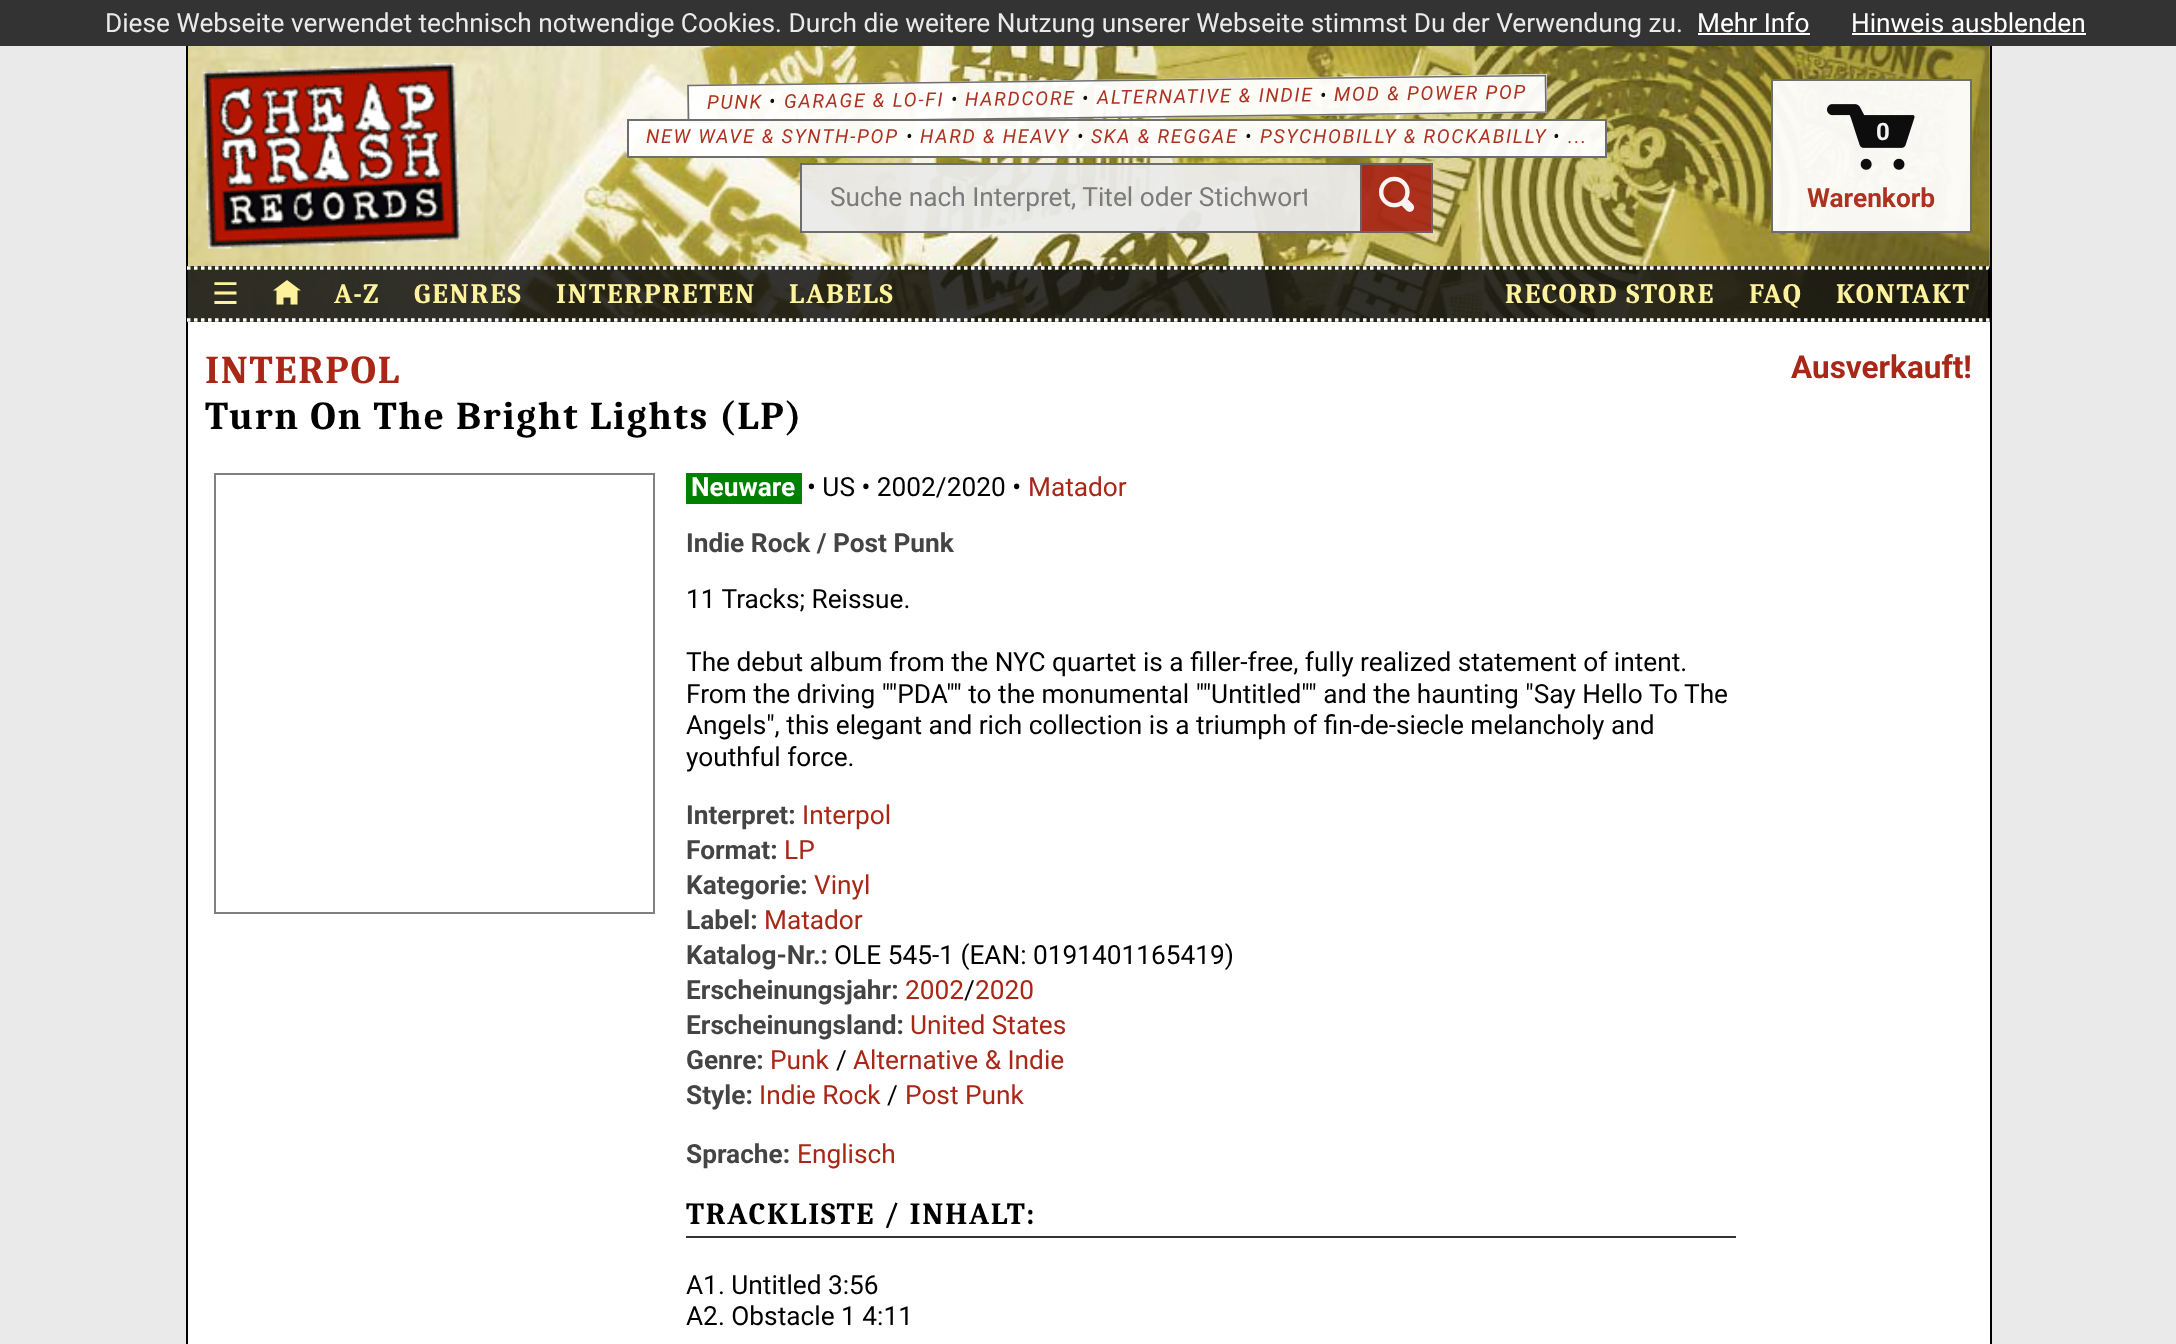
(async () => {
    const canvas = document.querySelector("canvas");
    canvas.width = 2176;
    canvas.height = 1344;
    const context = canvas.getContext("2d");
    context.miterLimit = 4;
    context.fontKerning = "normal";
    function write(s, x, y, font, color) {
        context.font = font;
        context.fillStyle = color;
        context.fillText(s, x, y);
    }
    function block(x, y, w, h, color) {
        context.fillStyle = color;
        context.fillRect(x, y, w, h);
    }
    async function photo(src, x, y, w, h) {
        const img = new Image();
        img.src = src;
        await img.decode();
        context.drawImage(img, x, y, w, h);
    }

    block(0, 0, 2176, 1344, "rgb(234, 234, 234)");
    block(0, 0, 2176, 46, "rgb(51, 51, 51)");
    write("Diese Webseite verwendet technisch notwendige Cookies. Durch die weitere Nutzung unserer Webseite stimmst Du der Verwendung zu.", 105, 32, "26.25px Roboto", "rgb(234, 234, 234)");
    write("Mehr Info", 1697, 32, "26.25px Roboto", "rgb(255, 255, 255)");
    block(1698, 33, 112, 2, "rgb(255, 255, 255)");
    write("Hinweis ausblenden", 1851, 32, "26.25px Roboto", "rgb(255, 255, 255)");
    block(1852, 33, 234, 2, "rgb(255, 255, 255)");
    await photo("media/1.png", 188, 46, 1802, 276);
    await photo("media/2.png", 203, 63, 258, 186);
    context.fillStyle = "rgba(255, 255, 255, 0.95)";
    context.beginPath();
    context.moveTo(687, 85);
    context.lineTo(1547, 74);
    context.lineTo(1547, 113);
    context.lineTo(688, 123);
    context.closePath();
    context.fill();
    context.beginPath();
    context.moveTo(688, 85.5);
    context.lineTo(1545.5, 75.5);
    context.lineTo(1546, 112);
    context.lineTo(688.5, 122.5);
    context.closePath();
    context.strokeStyle = "rgba(102, 102, 102, 0.95)";
    context.lineWidth = 1.7;
    context.stroke();
    context.letterSpacing = "1.75px";
    context.font = "italic 19.25px Roboto";
    context.fillStyle = "rgb(172, 50, 33)";
    context.save();
    context.translate(707, 109);
    context.rotate(-0.7 * Math.PI / 180);
    context.fillText("PUNK", 0, 0);
    context.restore();
    context.fillStyle = "rgb(13, 13, 12)";
    context.save();
    context.translate(769, 108);
    context.rotate(-0.7 * Math.PI / 180);
    context.fillText("•", 0, 0);
    context.restore();
    context.fillStyle = "rgb(172, 50, 33)";
    context.save();
    context.translate(784, 108);
    context.rotate(-0.7 * Math.PI / 180);
    context.fillText("GARAGE & LO-FI", 0, 0);
    context.restore();
    context.fillStyle = "rgb(13, 13, 12)";
    context.save();
    context.translate(951, 106);
    context.rotate(-0.7 * Math.PI / 180);
    context.fillText("•", 0, 0);
    context.restore();
    context.fillStyle = "rgb(172, 50, 33)";
    context.save();
    context.translate(965, 106);
    context.rotate(-0.7 * Math.PI / 180);
    context.fillText("HARDCORE", 0, 0);
    context.restore();
    context.fillStyle = "rgb(13, 13, 12)";
    context.save();
    context.translate(1082, 105);
    context.rotate(-0.7 * Math.PI / 180);
    context.fillText("•", 0, 0);
    context.restore();
    context.fillStyle = "rgb(172, 50, 33)";
    context.save();
    context.translate(1097, 104);
    context.rotate(-0.7 * Math.PI / 180);
    context.fillText("ALTERNATIVE & INDIE", 0, 0);
    context.restore();
    context.fillStyle = "rgb(13, 13, 12)";
    context.save();
    context.translate(1320, 102);
    context.rotate(-0.7 * Math.PI / 180);
    context.fillText("•", 0, 0);
    context.restore();
    context.fillStyle = "rgb(172, 50, 33)";
    context.save();
    context.translate(1334, 101);
    context.rotate(-0.7 * Math.PI / 180);
    context.fillText("MOD & POWER POP", 0, 0);
    context.restore();
    block(627, 119, 980, 39, "rgba(255, 255, 255, 0.95)");
    context.lineWidth = 2;
    context.strokeRect(628, 120, 978, 37);
    write("NEW WAVE & SYNTH-POP", 646, 143, "italic 19.25px Roboto", "rgb(172, 50, 33)");
    write("•", 906, 143, "italic 19.25px Roboto", "rgb(13, 13, 12)");
    write("HARD & HEAVY", 920, 143, "italic 19.25px Roboto", "rgb(172, 50, 33)");
    write("•", 1077, 143, "italic 19.25px Roboto", "rgb(13, 13, 12)");
    write("SKA & REGGAE", 1091, 143, "italic 19.25px Roboto", "rgb(172, 50, 33)");
    write("•", 1245, 143, "italic 19.25px Roboto", "rgb(13, 13, 12)");
    write("PSYCHOBILLY & ROCKABILLY", 1260, 143, "italic 19.25px Roboto", "rgb(172, 50, 33)");
    write("•", 1553, 143, "italic 19.25px Roboto", "rgb(13, 13, 12)");
    write("...", 1568, 143, "italic 19.25px Roboto", "rgb(172, 50, 33)");
    block(800, 163, 560, 70, "rgba(234, 234, 234, 0.95)");
    block(800, 163, 560, 2, "rgba(102, 102, 102, 0.95)");
    block(800, 231, 560, 2, "rgba(102, 102, 102, 0.95)");
    block(800, 163, 2, 70, "rgba(102, 102, 102, 0.95)");
    context.save();
    context.beginPath();
    context.rect(830, 182, 477, 32);
    context.clip();
    context.letterSpacing = "0px";
    write("Suche nach Interpret, Titel oder Stichwort", 830, 206, "26.25px Roboto", "rgb(123, 123, 123)");
    context.restore();
    block(1360, 163, 73, 70, "rgba(168, 39, 22, 0.95)");
    context.strokeRect(1361, 164, 71, 68);
    await photo("media/3.png", 1379, 176, 36, 36);
    block(1771, 79, 201, 154, "rgba(255, 255, 255, 0.95)");
    context.strokeRect(1772, 80, 199, 152);
    await photo("media/4.png", 1827, 104, 88, 66);
    context.letterSpacing = "0px";
    write("0", 1876, 140, "bold 24px Roboto", "rgb(243, 243, 243)");
    write("Warenkorb", 1807, 207, "bold 26.25px Roboto", "rgb(172, 50, 33)");
    block(186, 46, 2, 1298, "rgb(0, 0, 0)");
    block(187, 266, 1803, 56, "rgba(17, 17, 17, 0.85)");
    context.beginPath();
    context.moveTo(187, 268);
    context.lineTo(1990, 268);
    context.strokeStyle = "rgb(255, 255, 255)";
    context.lineWidth = 3.5;
    context.setLineDash([3.5, 3.5]);
    context.stroke();
    context.fillStyle = "rgb(0, 0, 0)";
    context.beginPath();
    context.moveTo(1990, 266);
    context.lineTo(1990, 322);
    context.lineTo(1988, 318);
    context.lineTo(1988, 270);
    context.closePath();
    context.fill();
    context.beginPath();
    context.moveTo(187, 320);
    context.lineTo(1990, 320);
    context.stroke();
    context.letterSpacing = "1.75px";
    write("☰", 212, 304, "30px DejaVu Sans", "rgb(254, 242, 157)");
    await photo("media/5.png", 273, 280, 28, 25);
    write("A-Z", 334, 303, "bold 28px Caladea", "rgb(254, 242, 157)");
    write("GENRES", 414, 303, "bold 28px Caladea", "rgb(254, 242, 157)");
    write("INTERPRETEN", 556, 303, "bold 28px Caladea", "rgb(254, 242, 157)");
    write("LABELS", 789, 303, "bold 28px Caladea", "rgb(254, 242, 157)");
    write("RECORD STORE", 1505, 303, "bold 28px Caladea", "rgb(254, 242, 157)");
    write("FAQ", 1749, 303, "bold 28px Caladea", "rgb(254, 242, 157)");
    write("KONTAKT", 1836, 303, "bold 28px Caladea", "rgb(254, 242, 157)");
    block(188, 322, 1802, 1022, "rgb(255, 255, 255)");
    block(1990, 46, 2, 1298, "rgb(0, 0, 0)");
    write("INTERPOL", 205, 383, "bold 39.4px Caladea", "rgb(168, 39, 22)");
    write("Turn On The Bright Lights (LP)", 205, 429, "bold 39.4px Caladea", "rgb(0, 0, 0)");
    context.letterSpacing = "0px";
    write("Ausverkauft!", 1791, 378, "bold 31.5px Roboto", "rgb(168, 39, 22)");
    context.strokeStyle = "rgb(128, 128, 128)";
    context.lineWidth = 2;
    context.setLineDash([]);
    context.strokeRect(215, 474, 439, 439);
    block(686, 473, 116, 31, "rgb(0, 128, 0)");
    write("Neuware", 691, 496, "bold 26.25px Roboto", "rgb(255, 255, 255)");
    write("• US • 2002/2020 •", 807, 496, "26.25px Roboto", "rgb(0, 0, 0)");
    write("Matador", 1028, 496, "26.25px Roboto", "rgb(168, 39, 22)");
    write("Indie Rock / Post Punk", 686, 552, "bold 26.25px Roboto", "rgb(68, 68, 68)");
    write("11 Tracks; Reissue.", 686, 608, "26.25px Roboto", "rgb(0, 0, 0)");
    write("The debut album from the NYC quartet is a filler-free, fully realized statement of intent.", 686, 671, "26.25px Roboto", "rgb(0, 0, 0)");
    write("From the driving \"\"PDA\"\" to the monumental \"\"Untitled\"\" and the haunting \"Say Hello To The", 686, 703, "26.25px Roboto", "rgb(0, 0, 0)");
    write("Angels\", this elegant and rich collection is a triumph of fin-de-siecle melancholy and", 686, 734, "26.25px Roboto", "rgb(0, 0, 0)");
    write("youthful force.", 686, 766, "26.25px Roboto", "rgb(0, 0, 0)");
    write("Interpret:", 686, 824, "bold 26.25px Roboto", "rgb(68, 68, 68)");
    write("Interpol", 802, 824, "26.25px Roboto", "rgb(168, 39, 22)");
    write("Format:", 686, 859, "bold 26.25px Roboto", "rgb(68, 68, 68)");
    write("LP", 784, 859, "26.25px Roboto", "rgb(168, 39, 22)");
    write("Kategorie:", 686, 894, "bold 26.25px Roboto", "rgb(68, 68, 68)");
    write("Vinyl", 814, 894, "26.25px Roboto", "rgb(168, 39, 22)");
    write("Label:", 686, 929, "bold 26.25px Roboto", "rgb(68, 68, 68)");
    write("Matador", 764, 929, "26.25px Roboto", "rgb(168, 39, 22)");
    write("Katalog-Nr.:", 686, 964, "bold 26.25px Roboto", "rgb(68, 68, 68)");
    write("OLE 545-1 (EAN: 0191401165419)", 834, 964, "26.25px Roboto", "rgb(0, 0, 0)");
    write("Erscheinungsjahr:", 686, 999, "bold 26.25px Roboto", "rgb(68, 68, 68)");
    write("2002", 905, 999, "26.25px Roboto", "rgb(168, 39, 22)");
    write("/", 964, 999, "26.25px Roboto", "rgb(0, 0, 0)");
    write("2020", 975, 999, "26.25px Roboto", "rgb(168, 39, 22)");
    write("Erscheinungsland:", 686, 1034, "bold 26.25px Roboto", "rgb(68, 68, 68)");
    write("United States", 910, 1034, "26.25px Roboto", "rgb(168, 39, 22)");
    write("Genre:", 686, 1069, "bold 26.25px Roboto", "rgb(68, 68, 68)");
    write("Punk", 770, 1069, "26.25px Roboto", "rgb(168, 39, 22)");
    write("/", 836, 1069, "26.25px Roboto", "rgb(0, 0, 0)");
    write("Alternative & Indie", 853, 1069, "26.25px Roboto", "rgb(168, 39, 22)");
    write("Style:", 686, 1104, "bold 26.25px Roboto", "rgb(68, 68, 68)");
    write("Indie Rock", 759, 1104, "26.25px Roboto", "rgb(168, 39, 22)");
    write("/", 887, 1104, "26.25px Roboto", "rgb(0, 0, 0)");
    write("Post Punk", 905, 1104, "26.25px Roboto", "rgb(168, 39, 22)");
    write("Sprache:", 686, 1163, "bold 26.25px Roboto", "rgb(68, 68, 68)");
    write("Englisch", 797, 1163, "26.25px Roboto", "rgb(168, 39, 22)");
    block(686, 1236, 1050, 2, "rgb(51, 51, 51)");
    context.letterSpacing = "1.75px";
    write("TRACKLISTE / INHALT:", 686, 1224, "bold 30.75px Caladea", "rgb(0, 0, 0)");
    context.letterSpacing = "0px";
    write("A1. Untitled 3:56", 686, 1294, "26.25px Roboto", "rgb(0, 0, 0)");
    write("A2. Obstacle 1 4:11", 686, 1325, "26.25px Roboto", "rgb(0, 0, 0)");
})();
